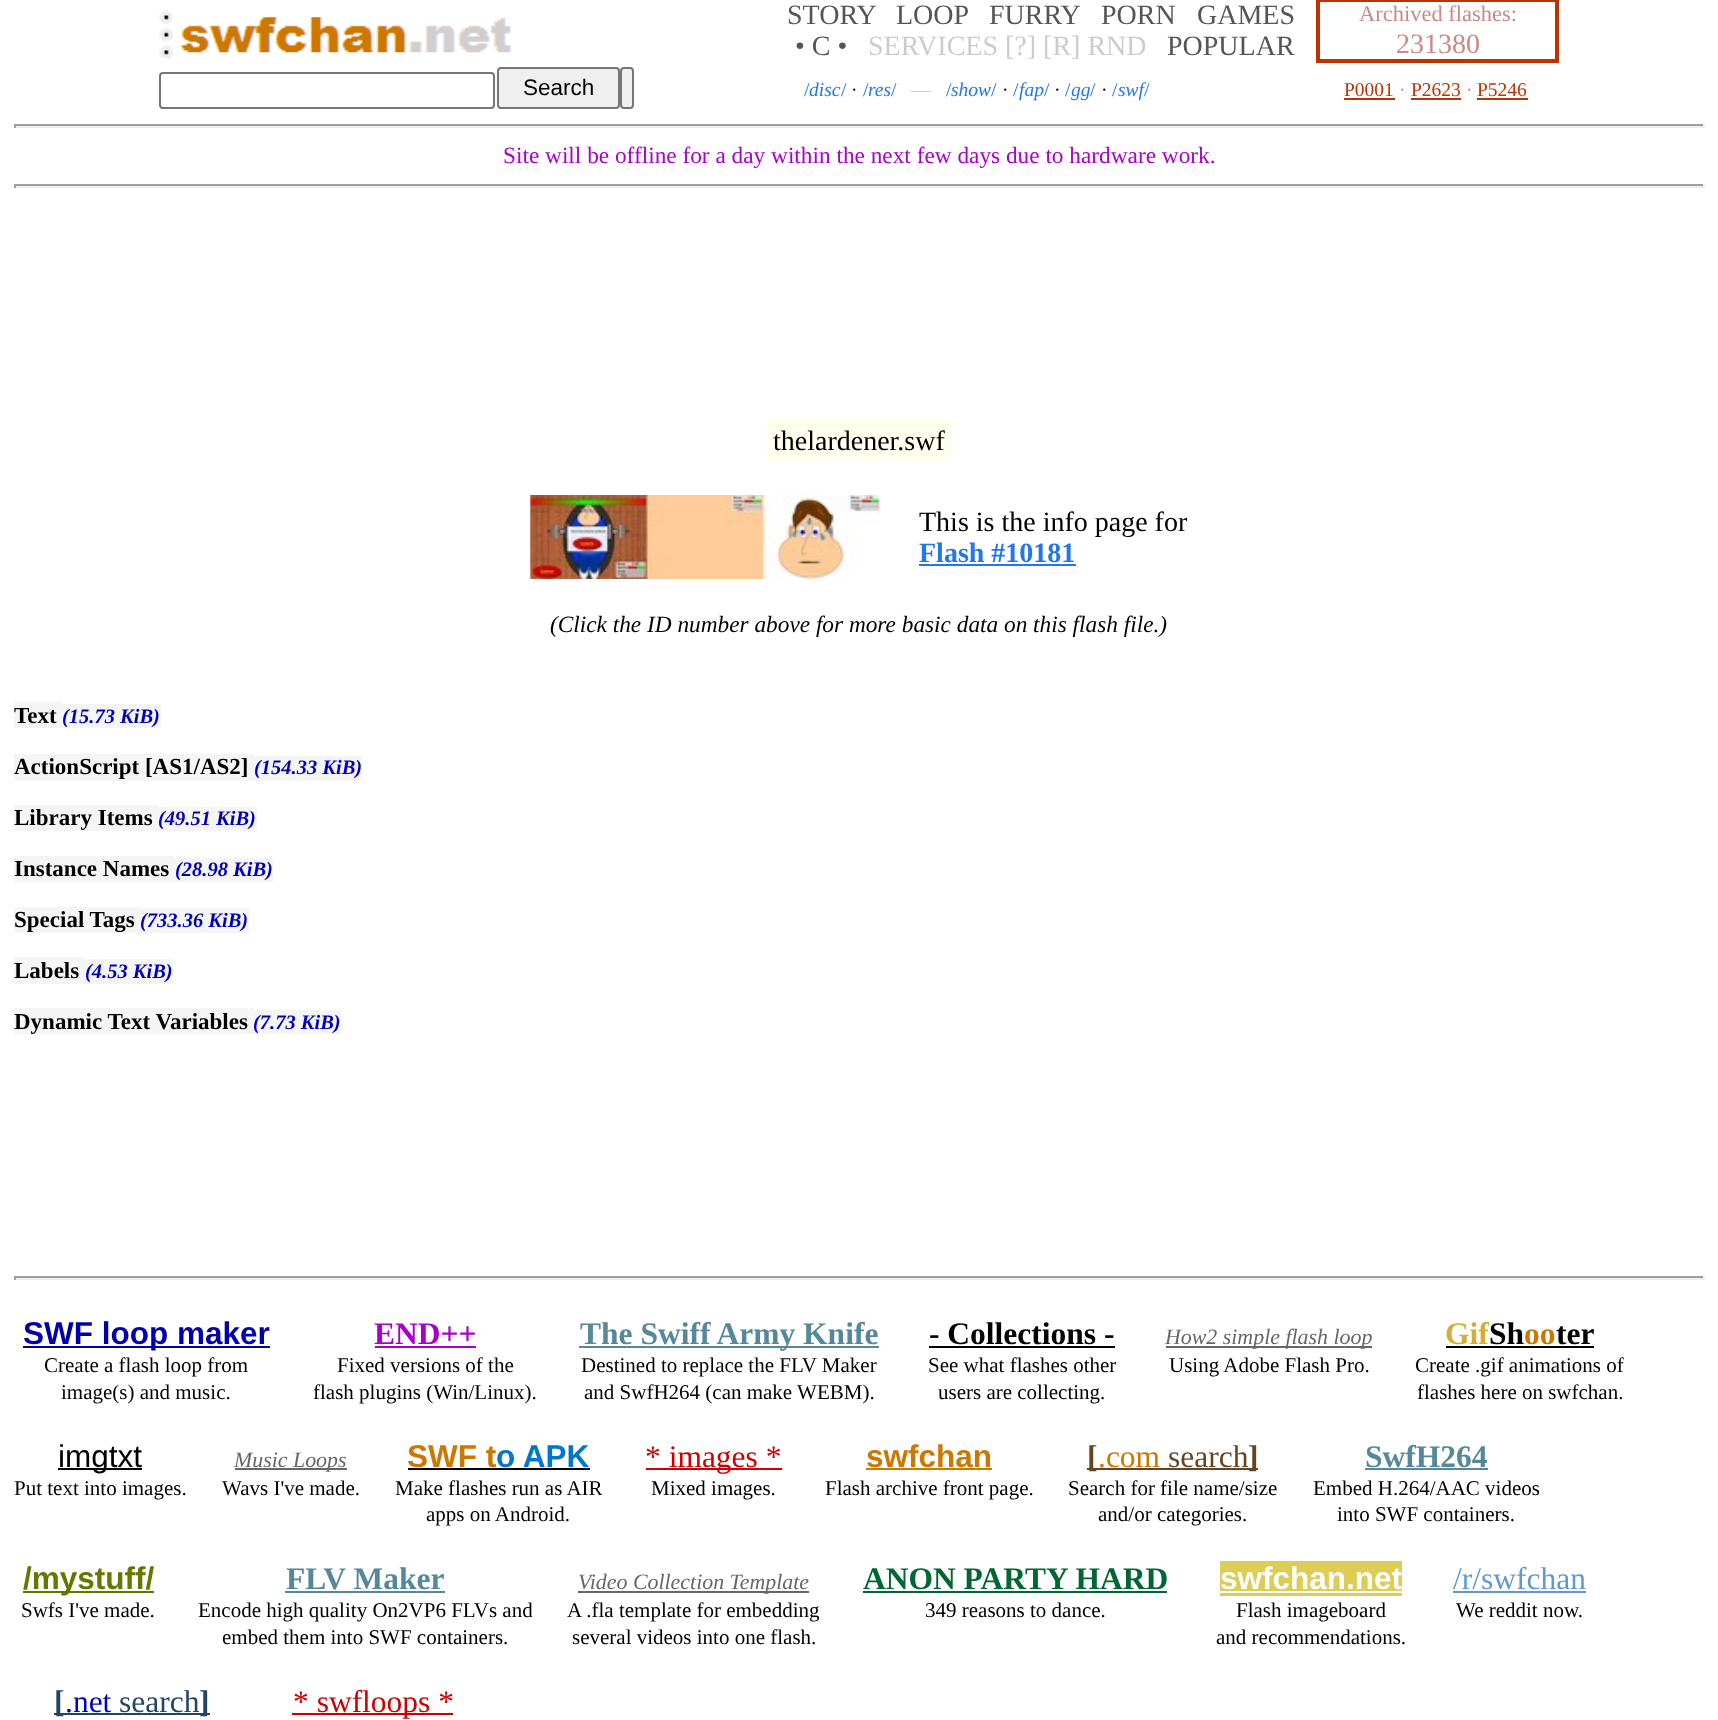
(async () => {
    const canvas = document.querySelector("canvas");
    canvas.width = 1718;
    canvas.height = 1720;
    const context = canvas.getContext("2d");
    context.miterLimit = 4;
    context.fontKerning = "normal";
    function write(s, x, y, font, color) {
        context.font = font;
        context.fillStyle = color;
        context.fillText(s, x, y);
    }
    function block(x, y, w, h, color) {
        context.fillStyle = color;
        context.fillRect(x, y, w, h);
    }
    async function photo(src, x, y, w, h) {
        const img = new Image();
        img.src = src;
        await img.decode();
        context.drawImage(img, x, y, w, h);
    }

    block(0, 0, 1718, 1720, "rgb(255, 255, 255)");
    await photo("media/1.png", 159, 10, 14, 14);
    await photo("media/2.png", 159, 28, 14, 14);
    await photo("media/3.png", 159, 45, 14, 14);
    await photo("media/4.png", 180, 17, 226, 36);
    await photo("media/5.png", 409, 17, 102, 36);
    write("STORY", 787, 24, "28px Liberation Serif", "rgb(85, 85, 85)");
    write("LOOP", 896, 24, "28px Liberation Serif", "rgb(85, 85, 85)");
    write("FURRY", 989, 24, "28px Liberation Serif", "rgb(85, 85, 85)");
    write("PORN", 1101, 24, "28px Liberation Serif", "rgb(85, 85, 85)");
    write("GAMES", 1197, 24, "28px Liberation Serif", "rgb(85, 85, 85)");
    write("• C •", 795, 55, "28px Liberation Serif", "rgb(85, 85, 85)");
    write("SERVICES [?] [R] RND", 868, 55, "28px Liberation Serif", "rgb(204, 204, 204)");
    write("POPULAR", 1167, 55, "28px Liberation Serif", "rgb(85, 85, 85)");
    context.strokeStyle = "rgb(187, 51, 0)";
    context.lineWidth = 4;
    context.strokeRect(1318, 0, 239, 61);
    write("Archived flashes:", 1359, 21, "22.5px Liberation Serif", "rgb(204, 136, 136)");
    write("231380", 1396, 53, "28px Liberation Serif", "rgb(204, 136, 136)");
    context.beginPath();
    context.roundRect(160, 73, 334, 35, 3);
    context.strokeStyle = "rgb(118, 118, 118)";
    context.lineWidth = 2;
    context.stroke();
    context.fillStyle = "rgb(239, 239, 239)";
    context.beginPath();
    context.roundRect(498, 68, 121, 40, 3);
    context.fill();
    context.stroke();
    write("Search", 523, 95, "22.5px Liberation Sans", "rgb(0, 0, 0)");
    context.fillStyle = "rgb(239, 239, 239)";
    context.beginPath();
    context.roundRect(621, 68, 12, 40, 3);
    context.fill();
    context.stroke();
    write("/", 804, 96, "19.5px Liberation Serif", "rgb(34, 119, 238)");
    write("disc", 809, 96, "italic 19.5px Liberation Serif", "rgb(34, 119, 238)");
    write("/", 841, 96, "19.5px Liberation Serif", "rgb(34, 119, 238)");
    write("·", 851, 96, "19.5px Liberation Serif", "rgb(0, 0, 0)");
    write("/", 863, 96, "19.5px Liberation Serif", "rgb(34, 119, 238)");
    write("res", 868, 96, "italic 19.5px Liberation Serif", "rgb(34, 119, 238)");
    write("/", 891, 96, "19.5px Liberation Serif", "rgb(34, 119, 238)");
    write("—", 911, 96, "19.5px Liberation Serif", "rgb(204, 204, 204)");
    write("/", 946, 96, "19.5px Liberation Serif", "rgb(34, 119, 238)");
    write("show", 951, 96, "italic 19.5px Liberation Serif", "rgb(34, 119, 238)");
    write("/", 991, 96, "19.5px Liberation Serif", "rgb(34, 119, 238)");
    write("·", 1002, 96, "19.5px Liberation Serif", "rgb(0, 0, 0)");
    write("/", 1013, 96, "19.5px Liberation Serif", "rgb(34, 119, 238)");
    write("fap", 1019, 96, "italic 19.5px Liberation Serif", "rgb(34, 119, 238)");
    write("/", 1044, 96, "19.5px Liberation Serif", "rgb(34, 119, 238)");
    write("·", 1054, 96, "19.5px Liberation Serif", "rgb(0, 0, 0)");
    write("/", 1065, 96, "19.5px Liberation Serif", "rgb(34, 119, 238)");
    write("gg", 1071, 96, "italic 19.5px Liberation Serif", "rgb(34, 119, 238)");
    write("/", 1090, 96, "19.5px Liberation Serif", "rgb(34, 119, 238)");
    write("·", 1101, 96, "19.5px Liberation Serif", "rgb(0, 0, 0)");
    write("/", 1112, 96, "19.5px Liberation Serif", "rgb(34, 119, 238)");
    write("swf", 1118, 96, "italic 19.5px Liberation Serif", "rgb(34, 119, 238)");
    write("/", 1144, 96, "19.5px Liberation Serif", "rgb(34, 119, 238)");
    write("P0001", 1344, 96, "19.5px Liberation Serif", "rgb(187, 51, 0)");
    block(1344, 98, 51, 2, "rgb(187, 51, 0)");
    write("·", 1399, 96, "19.5px Liberation Serif", "rgb(204, 136, 136)");
    write("P2623", 1411, 96, "19.5px Liberation Serif", "rgb(187, 51, 0)");
    block(1411, 98, 50, 2, "rgb(187, 51, 0)");
    write("·", 1466, 96, "19.5px Liberation Serif", "rgb(204, 136, 136)");
    write("P5246", 1477, 96, "19.5px Liberation Serif", "rgb(187, 51, 0)");
    block(1477, 98, 51, 2, "rgb(187, 51, 0)");
    block(14, 124, 1691, 2, "rgb(159, 159, 159)");
    block(1703, 124, 2, 4, "rgb(238, 238, 238)");
    block(14, 126, 1691, 2, "rgb(238, 238, 238)");
    block(14, 124, 2, 4, "rgb(159, 159, 159)");
    write("Site will be offline for a day within the next few days due to hardware work.", 503, 163, "23.3px Liberation Serif", "rgb(170, 0, 204)");
    block(14, 184, 1691, 2, "rgb(159, 159, 159)");
    block(1703, 184, 2, 4, "rgb(238, 238, 238)");
    block(14, 186, 1691, 2, "rgb(238, 238, 238)");
    block(14, 184, 2, 4, "rgb(159, 159, 159)");
    block(767, 418, 185, 44, "rgb(255, 255, 238)");
    write("thelardener.swf", 773, 450, "28px Liberation Serif", "rgb(0, 0, 0)");
    await photo("media/6.png", 530, 495, 351, 84);
    write("This is the info page for", 919, 531, "28px Liberation Serif", "rgb(0, 0, 0)");
    write("Flash #10181", 919, 562, "bold 28px Liberation Serif", "rgb(34, 119, 238)");
    block(919, 564, 157, 2, "rgb(34, 119, 238)");
    write("(Click the ID number above for more basic data on this flash file.)", 550, 632, "italic 23.3px Liberation Serif", "rgb(0, 0, 0)");
    block(14, 702, 49, 26, "rgb(245, 245, 245)");
    write("Text", 14, 723, "bold 23px Liberation Serif", "rgb(0, 0, 0)");
    block(63, 704, 98, 24, "rgb(245, 245, 245)");
    write("(15.73 KiB)", 62, 723, "italic bold 20.5px Liberation Serif", "rgb(0, 0, 187)");
    block(14, 754, 240, 27, "rgb(245, 245, 245)");
    write("ActionScript [AS1/AS2]", 14, 774, "bold 23px Liberation Serif", "rgb(0, 0, 0)");
    block(254, 756, 108, 25, "rgb(245, 245, 245)");
    write("(154.33 KiB)", 254, 774, "italic bold 20.5px Liberation Serif", "rgb(0, 0, 187)");
    block(14, 805, 144, 26, "rgb(245, 245, 245)");
    write("Library Items", 14, 825, "bold 23px Liberation Serif", "rgb(0, 0, 0)");
    block(158, 807, 99, 24, "rgb(245, 245, 245)");
    write("(49.51 KiB)", 158, 825, "italic bold 20.5px Liberation Serif", "rgb(0, 0, 187)");
    block(14, 856, 161, 26, "rgb(245, 245, 245)");
    write("Instance Names", 14, 876, "bold 23px Liberation Serif", "rgb(0, 0, 0)");
    block(175, 858, 98, 24, "rgb(245, 245, 245)");
    write("(28.98 KiB)", 175, 876, "italic bold 20.5px Liberation Serif", "rgb(0, 0, 187)");
    block(14, 907, 126, 26, "rgb(245, 245, 245)");
    write("Special Tags", 14, 927, "bold 23px Liberation Serif", "rgb(0, 0, 0)");
    block(140, 908, 109, 25, "rgb(245, 245, 245)");
    write("(733.36 KiB)", 140, 927, "italic bold 20.5px Liberation Serif", "rgb(0, 0, 187)");
    block(14, 957, 70, 27, "rgb(245, 245, 245)");
    write("Labels", 14, 978, "bold 23px Liberation Serif", "rgb(0, 0, 0)");
    block(84, 959, 89, 25, "rgb(245, 245, 245)");
    write("(4.53 KiB)", 85, 978, "italic bold 20.5px Liberation Serif", "rgb(0, 0, 187)");
    block(14, 1008, 240, 26, "rgb(245, 245, 245)");
    write("Dynamic Text Variables", 14, 1029, "bold 23px Liberation Serif", "rgb(0, 0, 0)");
    block(254, 1010, 87, 24, "rgb(245, 245, 245)");
    write("(7.73 KiB)", 253, 1029, "italic bold 20.5px Liberation Serif", "rgb(0, 0, 187)");
    block(14, 1276, 1691, 2, "rgb(159, 159, 159)");
    block(1703, 1276, 2, 4, "rgb(238, 238, 238)");
    block(14, 1278, 1691, 2, "rgb(238, 238, 238)");
    block(14, 1276, 2, 4, "rgb(159, 159, 159)");
    block(23, 1346, 247, 2, "rgb(0, 0, 170)");
    write("SWF loop maker", 23, 1344, "bold 31.5px Liberation Sans", "rgb(0, 0, 170)");
    write("Create a flash loop from", 44, 1372, "21px Liberation Serif", "rgb(0, 0, 0)");
    write("image(s) and music.", 61, 1399, "21px Liberation Serif", "rgb(0, 0, 0)");
    write("END++", 374, 1344, "bold 31.5px Liberation Serif", "rgb(170, 0, 204)");
    block(375, 1346, 101, 2, "rgb(170, 0, 204)");
    write("Fixed versions of the", 337, 1372, "21px Liberation Serif", "rgb(0, 0, 0)");
    write("flash plugins (Win/Linux).", 313, 1399, "21px Liberation Serif", "rgb(0, 0, 0)");
    block(579, 1346, 300, 2, "rgb(85, 136, 153)");
    write("The Swiff Army Knife", 580, 1344, "bold 31.5px Liberation Serif", "rgb(85, 136, 153)");
    write("Destined to replace the FLV Maker", 581, 1372, "21px Liberation Serif", "rgb(0, 0, 0)");
    write("and SwfH264 (can make WEBM).", 584, 1399, "21px Liberation Serif", "rgb(0, 0, 0)");
    write("- Collections -", 929, 1344, "bold 31.5px Liberation Serif", "rgb(0, 0, 0)");
    block(929, 1346, 186, 2, "rgb(0, 0, 0)");
    write("See what flashes other", 928, 1372, "21px Liberation Serif", "rgb(0, 0, 0)");
    write("users are collecting.", 938, 1399, "21px Liberation Serif", "rgb(0, 0, 0)");
    block(1166, 1346, 206, 2, "rgb(102, 102, 102)");
    write("How2 simple flash loop", 1165, 1344, "italic 21.9px Liberation Serif", "rgb(102, 102, 102)");
    write("Using Adobe Flash Pro.", 1169, 1372, "21px Liberation Serif", "rgb(0, 0, 0)");
    write("Gif", 1445, 1344, "bold 31.5px Liberation Serif", "rgb(212, 175, 55)");
    write("Sh", 1489, 1344, "bold 31.5px Liberation Serif", "rgb(0, 0, 0)");
    write("oo", 1524, 1344, "bold 31.5px Liberation Serif", "rgb(204, 119, 0)");
    block(1446, 1346, 148, 2, "rgb(0, 0, 0)");
    write("ter", 1556, 1344, "bold 31.5px Liberation Serif", "rgb(0, 0, 0)");
    write("Create .gif animations of", 1415, 1372, "21px Liberation Serif", "rgb(0, 0, 0)");
    write("flashes here on swfchan.", 1417, 1399, "21px Liberation Serif", "rgb(0, 0, 0)");
    block(58, 1468, 84, 2, "rgb(0, 0, 0)");
    write("imgtxt", 58, 1467, "31.5px Liberation Sans", "rgb(0, 0, 0)");
    write("Put text into images.", 14, 1495, "21px Liberation Serif", "rgb(0, 0, 0)");
    block(235, 1468, 112, 2, "rgb(102, 102, 102)");
    write("Music Loops", 234, 1467, "italic 21.9px Liberation Serif", "rgb(102, 102, 102)");
    write("Wavs I've made.", 222, 1495, "21px Liberation Serif", "rgb(0, 0, 0)");
    write("SWF t", 407, 1467, "bold 31.5px Liberation Sans", "rgb(204, 119, 0)");
    block(408, 1468, 182, 2, "rgb(0, 0, 0)");
    write("o APK", 496, 1467, "bold 31.5px Liberation Sans", "rgb(0, 119, 204)");
    write("Make flashes run as AIR", 395, 1495, "21px Liberation Serif", "rgb(0, 0, 0)");
    write("apps on Android.", 426, 1521, "21px Liberation Serif", "rgb(0, 0, 0)");
    block(646, 1468, 136, 2, "rgb(204, 0, 0)");
    write("* images *", 645, 1467, "31.5px Liberation Serif", "rgb(204, 0, 0)");
    write("Mixed images.", 651, 1495, "21px Liberation Serif", "rgb(0, 0, 0)");
    write("swfchan", 866, 1467, "bold 31.5px Liberation Sans", "rgb(204, 119, 0)");
    block(866, 1468, 126, 2, "rgb(204, 119, 0)");
    write("Flash archive front page.", 825, 1495, "21px Liberation Serif", "rgb(0, 0, 0)");
    block(1087, 1468, 171, 2, "rgb(102, 68, 34)");
    write("[", 1087, 1467, "bold 31.5px Liberation Serif", "rgb(102, 68, 34)");
    write(".com", 1098, 1467, "31.5px Liberation Serif", "rgb(204, 119, 0)");
    write("search", 1168, 1467, "31.5px Liberation Serif", "rgb(102, 68, 34)");
    write("]", 1248, 1467, "bold 31.5px Liberation Serif", "rgb(102, 68, 34)");
    write("Search for file name/size", 1068, 1495, "21px Liberation Serif", "rgb(0, 0, 0)");
    write("and/or categories.", 1098, 1521, "21px Liberation Serif", "rgb(0, 0, 0)");
    write("SwfH264", 1365, 1467, "bold 31.5px Liberation Serif", "rgb(85, 136, 153)");
    block(1365, 1468, 123, 2, "rgb(85, 136, 153)");
    write("Embed H.264/AAC videos", 1313, 1495, "21px Liberation Serif", "rgb(0, 0, 0)");
    write("into SWF containers.", 1337, 1521, "21px Liberation Serif", "rgb(0, 0, 0)");
    block(23, 1591, 131, 2, "rgb(102, 119, 0)");
    write("/mystuff/", 23, 1589, "bold 31.5px Liberation Sans", "rgb(102, 119, 0)");
    write("Swfs I've made.", 21, 1617, "21px Liberation Serif", "rgb(0, 0, 0)");
    write("FLV Maker", 286, 1589, "bold 31.5px Liberation Serif", "rgb(85, 136, 153)");
    block(285, 1591, 160, 2, "rgb(85, 136, 153)");
    write("Encode high quality On2VP6 FLVs and", 198, 1617, "21px Liberation Serif", "rgb(0, 0, 0)");
    write("embed them into SWF containers.", 222, 1644, "21px Liberation Serif", "rgb(0, 0, 0)");
    block(578, 1591, 231, 2, "rgb(102, 102, 102)");
    write("Video Collection Template", 578, 1589, "italic 21.9px Liberation Serif", "rgb(102, 102, 102)");
    write("A .fla template for embedding", 567, 1617, "21px Liberation Serif", "rgb(0, 0, 0)");
    write("several videos into one flash.", 572, 1644, "21px Liberation Serif", "rgb(0, 0, 0)");
    write("ANON PARTY HARD", 863, 1589, "bold 31.5px Liberation Serif", "rgb(0, 102, 51)");
    block(863, 1591, 304, 2, "rgb(0, 102, 51)");
    write("349 reasons to dance.", 925, 1617, "21px Liberation Serif", "rgb(0, 0, 0)");
    block(1220, 1561, 182, 35, "rgb(221, 204, 85)");
    write("swfchan.net", 1220, 1589, "bold 31.5px Liberation Sans", "rgb(255, 255, 255)");
    block(1220, 1591, 182, 2, "rgb(255, 255, 255)");
    write("Flash imageboard", 1236, 1617, "21px Liberation Serif", "rgb(0, 0, 0)");
    write("and recommendations.", 1216, 1644, "21px Liberation Serif", "rgb(0, 0, 0)");
    write("/r/swfchan", 1453, 1589, "31.5px Liberation Serif", "rgb(95, 153, 207)");
    block(1453, 1591, 133, 2, "rgb(95, 153, 207)");
    write("We reddit now.", 1456, 1617, "21px Liberation Serif", "rgb(0, 0, 0)");
    block(54, 1713, 156, 2, "rgb(34, 68, 102)");
    write("[", 54, 1712, "bold 31.5px Liberation Serif", "rgb(34, 68, 102)");
    write(".net", 65, 1712, "31.5px Liberation Serif", "rgb(0, 0, 187)");
    write("search", 119, 1712, "31.5px Liberation Serif", "rgb(34, 68, 102)");
    write("]", 199, 1712, "bold 31.5px Liberation Serif", "rgb(34, 68, 102)");
    block(292, 1713, 161, 2, "rgb(204, 0, 0)");
    write("* swfloops *", 293, 1712, "31.5px Liberation Serif", "rgb(204, 0, 0)");
})();
